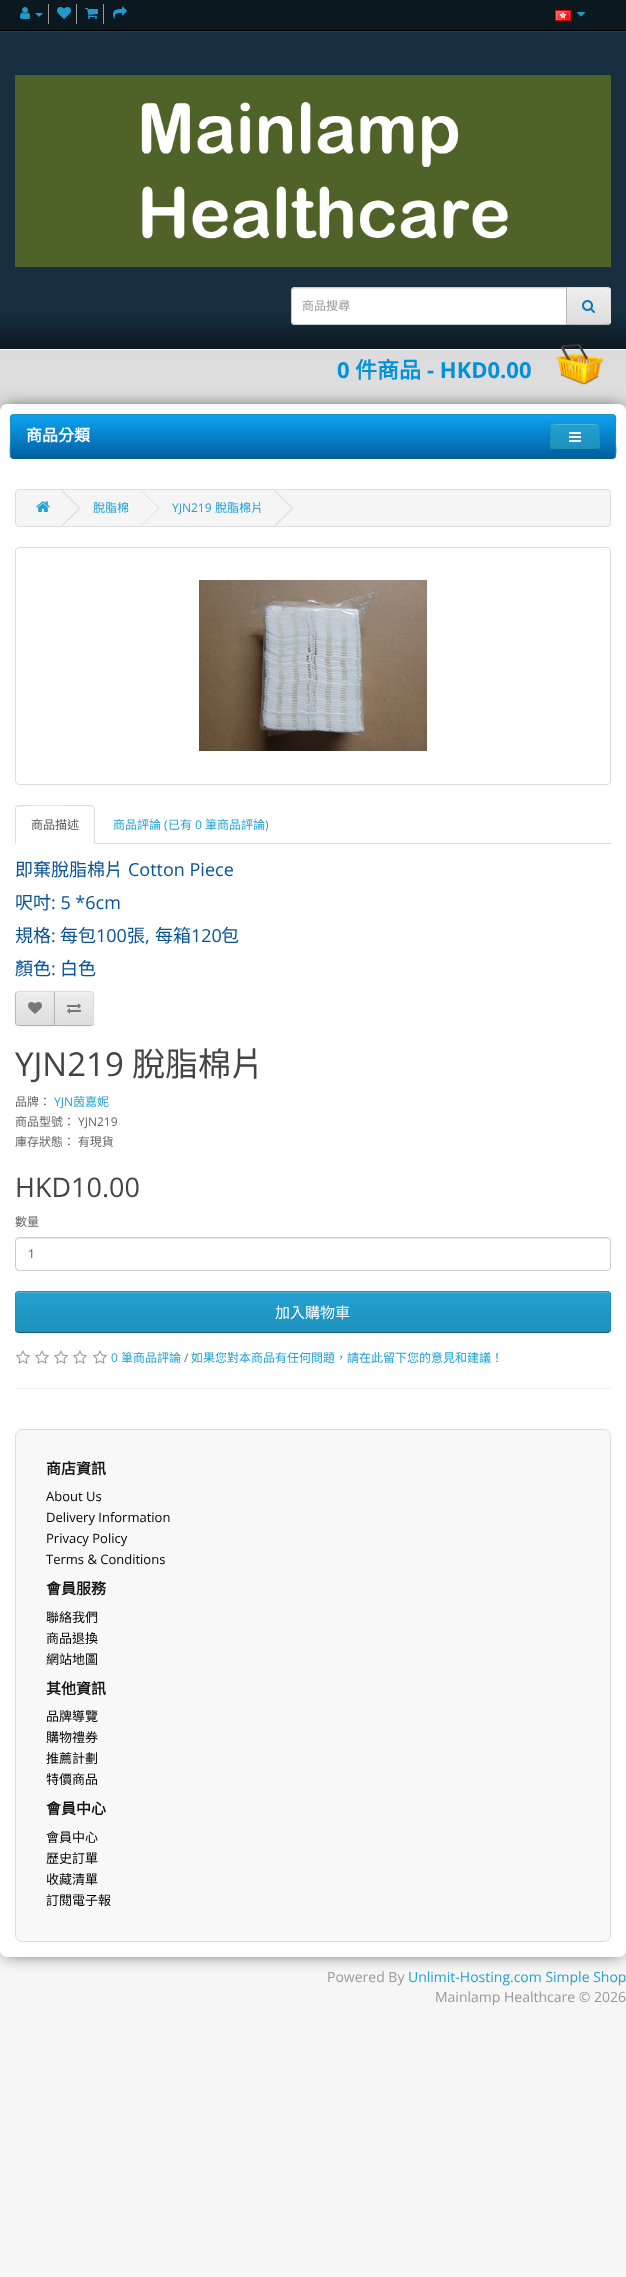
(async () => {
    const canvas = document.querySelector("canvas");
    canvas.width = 626;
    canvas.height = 2277;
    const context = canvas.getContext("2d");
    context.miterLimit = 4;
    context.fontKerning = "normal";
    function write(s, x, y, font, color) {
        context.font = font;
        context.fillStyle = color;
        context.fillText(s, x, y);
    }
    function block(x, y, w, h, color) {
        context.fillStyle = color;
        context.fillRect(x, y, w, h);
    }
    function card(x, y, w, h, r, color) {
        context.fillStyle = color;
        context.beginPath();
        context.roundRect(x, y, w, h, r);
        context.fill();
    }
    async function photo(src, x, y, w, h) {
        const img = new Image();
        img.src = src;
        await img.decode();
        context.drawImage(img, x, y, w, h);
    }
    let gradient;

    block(0, 0, 626, 2277, "rgb(246, 246, 246)");
    await photo("media/1.png", 0, 0, 626, 411);
    block(48, 4, 1, 20, "rgb(153, 153, 153)");
    await photo("media/2.png", 20, 7, 10, 12);
    context.fillStyle = "rgb(34, 154, 200)";
    context.beginPath();
    context.moveTo(35, 13);
    context.lineTo(43, 13);
    context.lineTo(39, 17);
    context.closePath();
    context.fill();
    block(76, 4, 1, 20, "rgb(153, 153, 153)");
    await photo("media/3.png", 57, 7, 14, 12);
    block(103, 4, 1, 20, "rgb(153, 153, 153)");
    await photo("media/4.png", 85, 8, 13, 11);
    await photo("media/5.png", 113, 6, 14, 13);
    await photo("media/6.png", 555, 10, 16, 11);
    await photo("media/7.png", 577, 12, 8, 5);
    await photo("media/8.png", 15, 75, 596, 192);
    context.fillStyle = "rgb(255, 255, 255)";
    context.beginPath();
    context.roundRect(291, 287, 276, 38, [4, 0, 0, 4]);
    context.fill();
    context.fillStyle = "rgb(236, 236, 236)";
    context.beginPath();
    context.moveTo(295, 289);
    context.lineTo(566, 289);
    context.lineTo(566, 288);
    context.lineTo(295, 288);
    context.bezierCurveTo(293, 288, 292, 289, 292, 291);
    context.lineTo(292, 292);
    context.bezierCurveTo(292, 290, 293, 289, 295, 289);
    context.closePath();
    context.fill();
    context.beginPath();
    context.roundRect(291.5, 287.5, 275, 37, [3.5, 0, 0, 3.5]);
    context.strokeStyle = "rgb(204, 204, 204)";
    context.stroke();
    write("商品搜尋", 302, 310, "12px Noto Sans CJK TC", "rgb(153, 153, 153)");
    context.fillStyle = "rgb(231, 231, 231)";
    context.beginPath();
    context.roundRect(566, 287, 45, 38, [0, 4, 4, 0]);
    context.fill();
    context.save();
    context.beginPath();
    context.roundRect(566, 287, 45, 38, [0, 4, 4, 0]);
    context.clip();
    gradient = context.createLinearGradient(589, 288, 589, 324);
    gradient.addColorStop(0, "rgb(238, 238, 238)");
    gradient.addColorStop(1, "rgb(221, 221, 221)");
    context.fillStyle = gradient;
    context.fillRect(567, 288, 44, 36);
    context.restore();
    context.fillStyle = "rgb(241, 241, 241)";
    context.beginPath();
    context.moveTo(567, 289);
    context.lineTo(607, 289);
    context.bezierCurveTo(609, 289, 610, 290, 610, 292);
    context.lineTo(610, 291);
    context.bezierCurveTo(610, 289, 609, 288, 607, 288);
    context.lineTo(567, 288);
    context.closePath();
    context.fill();
    context.fillStyle = "rgb(221, 221, 221)";
    context.beginPath();
    context.moveTo(566, 287);
    context.lineTo(567, 288);
    context.bezierCurveTo(572, 288, 607, 287, 609, 289);
    context.lineTo(610, 288);
    context.lineTo(607, 287);
    context.closePath();
    context.fill();
    context.beginPath();
    context.moveTo(611, 321);
    context.lineTo(611, 291);
    context.bezierCurveTo(611, 290, 610.5, 289, 610, 288);
    context.lineTo(609, 289);
    context.bezierCurveTo(610, 289, 610, 290, 610, 291);
    context.lineTo(610, 321);
    context.bezierCurveTo(610, 322, 610, 323, 609, 323);
    context.lineTo(610, 324);
    context.bezierCurveTo(610.5, 323, 611, 322, 611, 321);
    context.closePath();
    context.fill();
    context.fillStyle = "rgb(179, 179, 179)";
    context.beginPath();
    context.moveTo(607, 325);
    context.lineTo(610, 324);
    context.lineTo(609, 323);
    context.bezierCurveTo(607, 325, 572, 324, 567, 324);
    context.lineTo(566, 325);
    context.closePath();
    context.fill();
    context.fillStyle = "rgb(183, 183, 183)";
    context.beginPath();
    context.moveTo(566, 287);
    context.lineTo(566, 325);
    context.lineTo(567, 324);
    context.lineTo(567, 288);
    context.closePath();
    context.fill();
    await photo("media/9.png", 582, 300, 13, 13);
    context.fillStyle = "rgba(0, 0, 0, 0.75)";
    context.filter = "blur(9px)";
    context.beginPath();
    context.roundRect(4, 408, 618, 1545, 3);
    context.fill();
    context.filter = "none";
    await photo("media/10.png", 556, 344, 48, 41);
    write("0", 337, 378, "bold 22px Open Sans", "rgb(0, 146, 220)");
    write("件商品", 355, 378, "bold 22px Noto Sans CJK TC", "rgb(0, 146, 220)");
    write("- HKD0.00", 427, 378, "bold 22px Open Sans", "rgb(0, 146, 220)");
    card(0, 404, 626, 1553, 7, "rgb(255, 255, 255)");
    card(10, 414, 606, 45, 4, "rgb(34, 154, 200)");
    context.save();
    context.beginPath();
    context.roundRect(10, 414, 606, 45, 4);
    context.clip();
    gradient = context.createLinearGradient(313, 415, 313, 458);
    gradient.addColorStop(0, "rgb(15, 163, 241)");
    gradient.addColorStop(1, "rgb(0, 95, 161)");
    context.fillStyle = gradient;
    context.fillRect(10, 415, 606, 43);
    context.restore();
    context.beginPath();
    context.moveTo(614.5, 457.5);
    context.lineTo(612, 458.5);
    context.lineTo(14, 458.5);
    context.lineTo(11.5, 457.5);
    context.strokeStyle = "rgb(20, 94, 122)";
    context.stroke();
    context.beginPath();
    context.moveTo(11.5, 457.5);
    context.bezierCurveTo(9, 455, 10.5, 445.5, 10.5, 442.5);
    context.lineTo(10.5, 424);
    context.bezierCurveTo(10.5, 421.5, 9, 415.5, 13.5, 414.5);
    context.lineTo(612.5, 414.5);
    context.bezierCurveTo(617, 415.5, 615.5, 421.5, 615.5, 424);
    context.lineTo(615.5, 442.5);
    context.bezierCurveTo(615.5, 445.5, 617, 455, 614.5, 457.5);
    context.strokeStyle = "rgb(31, 144, 187)";
    context.stroke();
    write("商品分類", 26, 441, "bold 16px Noto Sans CJK TC", "rgb(255, 255, 255)");
    context.fillStyle = "rgba(0, 0, 0, 0.05)";
    context.filter = "blur(1px)";
    context.beginPath();
    context.roundRect(550, 424, 50, 27, 4);
    context.fill();
    context.filter = "none";
    card(550, 423, 50, 27, 4, "rgb(34, 154, 200)");
    context.save();
    context.beginPath();
    context.roundRect(550, 423, 50, 27, 4);
    context.clip();
    gradient = context.createLinearGradient(575, 424, 575, 449);
    gradient.addColorStop(0, "rgb(35, 161, 209)");
    gradient.addColorStop(1, "rgb(31, 144, 187)");
    context.fillStyle = gradient;
    context.fillRect(550, 424, 50, 25);
    context.restore();
    context.fillStyle = "rgb(79, 180, 218)";
    context.beginPath();
    context.moveTo(554, 425);
    context.lineTo(596, 425);
    context.bezierCurveTo(598, 425, 599, 426, 599, 428);
    context.bezierCurveTo(599, 422, 593, 424, 589, 424);
    context.lineTo(561, 424);
    context.bezierCurveTo(557, 424, 551, 422, 551, 428);
    context.bezierCurveTo(551, 426, 552, 425, 554, 425);
    context.closePath();
    context.fill();
    context.beginPath();
    context.moveTo(598.5, 448.5);
    context.bezierCurveTo(598, 449, 597, 449.5, 596, 449.5);
    context.lineTo(554, 449.5);
    context.bezierCurveTo(553, 449.5, 552, 449, 551.5, 448.5);
    context.strokeStyle = "rgb(20, 94, 122)";
    context.stroke();
    context.beginPath();
    context.moveTo(551.5, 448.5);
    context.bezierCurveTo(549.5, 446.5, 550.5, 439, 550.5, 436.5);
    context.bezierCurveTo(550.5, 423.5, 548.5, 423.5, 561, 423.5);
    context.lineTo(589, 423.5);
    context.bezierCurveTo(601.5, 423.5, 599.5, 423.5, 599.5, 436.5);
    context.bezierCurveTo(599.5, 439, 600.5, 446.5, 598.5, 448.5);
    context.strokeStyle = "rgb(31, 144, 187)";
    context.stroke();
    await photo("media/11.png", 569, 432, 12, 10);
    context.fillStyle = "rgb(245, 245, 245)";
    context.beginPath();
    context.roundRect(15.5, 489.5, 595, 37, 3.5);
    context.fill();
    context.strokeStyle = "rgb(221, 221, 221)";
    context.stroke();
    await photo("media/12.png", 36, 501, 14, 11);
    context.fillStyle = "rgb(221, 221, 221)";
    context.beginPath();
    context.moveTo(61, 490.5);
    context.lineTo(62, 490);
    context.lineTo(80.5, 508.5);
    context.lineTo(79.5, 509);
    context.closePath();
    context.fill();
    context.beginPath();
    context.moveTo(61, 526);
    context.lineTo(79.5, 507.5);
    context.lineTo(80.5, 508.5);
    context.lineTo(62, 526.5);
    context.closePath();
    context.fill();
    write("脫脂棉", 93, 512, "12px Noto Sans CJK TC", "rgb(35, 161, 209)");
    context.fillStyle = "rgb(221, 221, 221)";
    context.beginPath();
    context.moveTo(140.5, 490.5);
    context.lineTo(141, 490);
    context.lineTo(159.5, 508.5);
    context.lineTo(159, 509);
    context.closePath();
    context.fill();
    context.beginPath();
    context.moveTo(140.5, 526);
    context.lineTo(159, 507.5);
    context.lineTo(159.5, 508.5);
    context.lineTo(141, 526.5);
    context.closePath();
    context.fill();
    write("YJN219", 172, 512, "12px Open Sans", "rgb(35, 161, 209)");
    write("脫脂棉片", 215, 512, "12px Noto Sans CJK TC", "rgb(35, 161, 209)");
    context.fillStyle = "rgb(221, 221, 221)";
    context.beginPath();
    context.moveTo(274, 490.5);
    context.lineTo(275, 490);
    context.lineTo(293.5, 508.5);
    context.lineTo(292.5, 509);
    context.closePath();
    context.fill();
    context.beginPath();
    context.moveTo(274, 526);
    context.lineTo(292.5, 507.5);
    context.lineTo(293.5, 508.5);
    context.lineTo(275, 526.5);
    context.closePath();
    context.fill();
    context.beginPath();
    context.roundRect(15.5, 547.5, 595, 237, 3.5);
    context.stroke();
    await photo("media/13.png", 199, 578, 228, 175);
    block(95, 843, 516, 1, "rgb(221, 221, 221)");
    context.beginPath();
    context.moveTo(19, 805);
    context.lineTo(16, 806);
    context.lineTo(17, 807);
    context.bezierCurveTo(19, 805, 72, 806, 79, 806);
    context.lineTo(91, 806);
    context.lineTo(93, 807);
    context.lineTo(94, 806);
    context.lineTo(91, 805);
    context.closePath();
    context.fill();
    context.beginPath();
    context.moveTo(95, 844);
    context.lineTo(95, 809);
    context.bezierCurveTo(95, 808, 94.5, 807, 94, 806);
    context.lineTo(93, 807);
    context.bezierCurveTo(94, 807, 94, 808, 94, 809);
    context.lineTo(94, 843);
    context.closePath();
    context.fill();
    context.beginPath();
    context.moveTo(15, 844);
    context.lineTo(16, 843);
    context.lineTo(16, 809);
    context.bezierCurveTo(16, 808, 16, 807, 17, 807);
    context.lineTo(16, 806);
    context.bezierCurveTo(15.5, 807, 15, 808, 15, 809);
    context.closePath();
    context.fill();
    write("商品描述", 31, 829, "12px Noto Sans CJK TC", "rgb(85, 85, 85)");
    write("商品評論", 113, 829, "12px Noto Sans CJK TC", "rgb(35, 161, 209)");
    write("(", 164, 829, "12px Open Sans", "rgb(35, 161, 209)");
    write("已有", 168, 829, "12px Noto Sans CJK TC", "rgb(35, 161, 209)");
    write("0", 195, 829, "12px Open Sans", "rgb(35, 161, 209)");
    write("筆商品評論", 205, 829, "12px Noto Sans CJK TC", "rgb(35, 161, 209)");
    write(")", 265, 829, "12px Open Sans", "rgb(35, 161, 209)");
    write("即棄脫脂棉片", 15, 876, "18px Noto Sans CJK TC", "rgb(8, 82, 148)");
    write("Cotton Piece", 128, 876, "18px Open Sans", "rgb(8, 82, 148)");
    write("呎吋", 15, 909, "18px Noto Sans CJK TC", "rgb(8, 82, 148)");
    write(": 5 *6cm", 51, 909, "18px Open Sans", "rgb(8, 82, 148)");
    write("規格", 15, 942, "18px Noto Sans CJK TC", "rgb(8, 82, 148)");
    write(":", 51, 942, "18px Open Sans", "rgb(8, 82, 148)");
    write("每包", 60, 942, "18px Noto Sans CJK TC", "rgb(8, 82, 148)");
    write("100", 96, 942, "18px Open Sans", "rgb(8, 82, 148)");
    write("張", 127, 942, "18px Noto Sans CJK TC", "rgb(8, 82, 148)");
    write(",", 145, 942, "18px Open Sans", "rgb(8, 82, 148)");
    write("每箱", 155, 942, "18px Noto Sans CJK TC", "rgb(8, 82, 148)");
    write("120", 191, 942, "18px Open Sans", "rgb(8, 82, 148)");
    write("包", 221, 942, "18px Noto Sans CJK TC", "rgb(8, 82, 148)");
    write("顏色", 15, 975, "18px Noto Sans CJK TC", "rgb(8, 82, 148)");
    write(":", 51, 975, "18px Open Sans", "rgb(8, 82, 148)");
    write("白色", 60, 975, "18px Noto Sans CJK TC", "rgb(8, 82, 148)");
    context.fillStyle = "rgba(0, 0, 0, 0.05)";
    context.filter = "blur(1px)";
    context.beginPath();
    context.roundRect(15, 992, 40, 35, 4);
    context.fill();
    context.filter = "none";
    context.save();
    context.beginPath();
    context.roundRect(15, 991, 40, 35, [4, 0, 0, 4]);
    context.clip();
    gradient = context.createLinearGradient(35, 992, 35, 1025);
    gradient.addColorStop(0, "rgb(238, 238, 238)");
    gradient.addColorStop(1, "rgb(221, 221, 221)");
    context.fillStyle = gradient;
    context.fillRect(15, 992, 39, 33);
    context.restore();
    context.fillStyle = "rgb(241, 241, 241)";
    context.beginPath();
    context.moveTo(19, 993);
    context.lineTo(54, 993);
    context.lineTo(54, 992);
    context.lineTo(19, 992);
    context.bezierCurveTo(17.5, 992, 16, 993.5, 16, 995);
    context.lineTo(16, 996);
    context.bezierCurveTo(16, 994, 17, 993, 19, 993);
    context.closePath();
    context.fill();
    context.fillStyle = "rgb(221, 221, 221)";
    context.beginPath();
    context.moveTo(19, 991);
    context.bezierCurveTo(18, 991, 17, 991.5, 16, 992);
    context.lineTo(17, 993);
    context.bezierCurveTo(17, 992, 18, 992, 19, 992);
    context.lineTo(54, 992);
    context.lineTo(55, 991);
    context.closePath();
    context.fill();
    context.fillStyle = "rgb(179, 179, 179)";
    context.beginPath();
    context.moveTo(55, 1026);
    context.lineTo(54, 1025);
    context.lineTo(19, 1025);
    context.bezierCurveTo(18, 1025, 17, 1025, 17, 1024);
    context.lineTo(16, 1025);
    context.bezierCurveTo(17, 1025.5, 18, 1026, 19, 1026);
    context.closePath();
    context.fill();
    context.fillStyle = "rgb(183, 183, 183)";
    context.beginPath();
    context.moveTo(15, 995);
    context.lineTo(15, 1022);
    context.bezierCurveTo(15, 1023, 15.5, 1024, 16, 1025);
    context.lineTo(17, 1024);
    context.bezierCurveTo(16, 1024, 16, 1023, 16, 1022);
    context.lineTo(16, 995);
    context.bezierCurveTo(16, 994, 16, 993, 17, 993);
    context.lineTo(16, 992);
    context.bezierCurveTo(15.5, 993, 15, 994, 15, 995);
    context.closePath();
    context.fill();
    await photo("media/14.png", 28, 1002, 14, 12);
    context.fillStyle = "rgba(0, 0, 0, 0.05)";
    context.filter = "blur(1px)";
    context.beginPath();
    context.roundRect(54, 992, 40, 35, 4);
    context.fill();
    context.filter = "none";
    context.save();
    context.beginPath();
    context.roundRect(54, 991, 40, 35, [0, 4, 4, 0]);
    context.clip();
    gradient = context.createLinearGradient(74, 992, 74, 1025);
    gradient.addColorStop(0, "rgb(238, 238, 238)");
    gradient.addColorStop(1, "rgb(221, 221, 221)");
    context.fillStyle = gradient;
    context.fillRect(55, 992, 39, 33);
    context.restore();
    context.fillStyle = "rgb(241, 241, 241)";
    context.beginPath();
    context.moveTo(55, 993);
    context.lineTo(90, 993);
    context.bezierCurveTo(92, 993, 93, 994, 93, 996);
    context.lineTo(93, 995);
    context.bezierCurveTo(93, 993.5, 91.5, 992, 90, 992);
    context.lineTo(55, 992);
    context.closePath();
    context.fill();
    context.fillStyle = "rgb(221, 221, 221)";
    context.beginPath();
    context.moveTo(54, 991);
    context.lineTo(55, 992);
    context.lineTo(90, 992);
    context.bezierCurveTo(91, 992, 92, 992, 92, 993);
    context.lineTo(93, 992);
    context.bezierCurveTo(92, 991.5, 91, 991, 90, 991);
    context.closePath();
    context.fill();
    context.beginPath();
    context.moveTo(94, 1022);
    context.lineTo(94, 995);
    context.bezierCurveTo(94, 994, 93.5, 993, 93, 992);
    context.lineTo(92, 993);
    context.bezierCurveTo(93, 993, 93, 994, 93, 995);
    context.lineTo(93, 1022);
    context.bezierCurveTo(93, 1023, 93, 1024, 92, 1024);
    context.lineTo(93, 1025);
    context.bezierCurveTo(93.5, 1024, 94, 1023, 94, 1022);
    context.closePath();
    context.fill();
    context.fillStyle = "rgb(179, 179, 179)";
    context.beginPath();
    context.moveTo(90, 1026);
    context.bezierCurveTo(91, 1026, 92, 1025.5, 93, 1025);
    context.lineTo(92, 1024);
    context.bezierCurveTo(92, 1025, 91, 1025, 90, 1025);
    context.lineTo(55, 1025);
    context.lineTo(54, 1026);
    context.closePath();
    context.fill();
    context.fillStyle = "rgb(183, 183, 183)";
    context.beginPath();
    context.moveTo(54, 991);
    context.lineTo(54, 1026);
    context.lineTo(55, 1025);
    context.lineTo(55, 992);
    context.closePath();
    context.fill();
    await photo("media/15.png", 67, 1003, 14, 11);
    write("YJN219", 15, 1076, "33px Open Sans", "rgb(68, 68, 68)");
    write("脫脂棉片", 132, 1076, "33px Noto Sans CJK TC", "rgb(68, 68, 68)");
    write("品牌：", 15, 1106, "12px Noto Sans CJK TC", "rgb(102, 102, 102)");
    write("YJN", 54, 1106, "12px Open Sans", "rgb(35, 161, 209)");
    write("茵嘉妮", 73, 1106, "12px Noto Sans CJK TC", "rgb(35, 161, 209)");
    write("商品型號：", 15, 1126, "12px Noto Sans CJK TC", "rgb(102, 102, 102)");
    write("YJN219", 78, 1126, "12px Open Sans", "rgb(102, 102, 102)");
    write("庫存狀態： 有現貨", 15, 1146, "12px Noto Sans CJK TC", "rgb(102, 102, 102)");
    write("HKD10.00", 15, 1197, "27px Open Sans", "rgb(68, 68, 68)");
    write("數量", 15, 1226, "12px Noto Sans CJK TC", "rgb(102, 102, 102)");
    context.fillStyle = "rgb(236, 236, 236)";
    context.beginPath();
    context.moveTo(19, 1239);
    context.lineTo(607, 1239);
    context.bezierCurveTo(609, 1239, 610, 1240, 610, 1242);
    context.lineTo(610, 1241);
    context.bezierCurveTo(610, 1239, 609, 1238, 607, 1238);
    context.lineTo(19, 1238);
    context.bezierCurveTo(17, 1238, 16, 1239, 16, 1241);
    context.lineTo(16, 1242);
    context.bezierCurveTo(16, 1240, 17, 1239, 19, 1239);
    context.closePath();
    context.fill();
    context.beginPath();
    context.roundRect(15.5, 1237.5, 595, 33, 3.5);
    context.strokeStyle = "rgb(204, 204, 204)";
    context.stroke();
    write("1", 28, 1258, "12px Open Sans", "rgb(85, 85, 85)");
    context.fillStyle = "rgba(0, 0, 0, 0.05)";
    context.filter = "blur(1px)";
    context.beginPath();
    context.roundRect(15, 1292, 596, 42, 4);
    context.fill();
    context.filter = "none";
    card(15, 1291, 596, 42, 4, "rgb(34, 154, 200)");
    context.save();
    context.beginPath();
    context.roundRect(15, 1291, 596, 42, 4);
    context.clip();
    gradient = context.createLinearGradient(313, 1292, 313, 1332);
    gradient.addColorStop(0, "rgb(35, 161, 209)");
    gradient.addColorStop(1, "rgb(31, 144, 187)");
    context.fillStyle = gradient;
    context.fillRect(15, 1292, 596, 40);
    context.restore();
    context.fillStyle = "rgb(79, 180, 218)";
    context.beginPath();
    context.moveTo(19, 1293);
    context.lineTo(607, 1293);
    context.bezierCurveTo(609, 1293, 610, 1294, 610, 1296);
    context.lineTo(610, 1295);
    context.bezierCurveTo(610, 1293, 609, 1292, 607, 1292);
    context.lineTo(19, 1292);
    context.bezierCurveTo(17, 1292, 16, 1293, 16, 1295);
    context.lineTo(16, 1296);
    context.bezierCurveTo(16, 1294, 17, 1293, 19, 1293);
    context.closePath();
    context.fill();
    context.beginPath();
    context.moveTo(609.5, 1331.5);
    context.lineTo(607, 1332.5);
    context.lineTo(19, 1332.5);
    context.lineTo(16.5, 1331.5);
    context.strokeStyle = "rgb(20, 94, 122)";
    context.stroke();
    context.beginPath();
    context.moveTo(16.5, 1331.5);
    context.bezierCurveTo(16, 1331, 15.5, 1330, 15.5, 1329);
    context.lineTo(15.5, 1295);
    context.bezierCurveTo(15.5, 1294, 16, 1293, 16.5, 1292.5);
    context.bezierCurveTo(17, 1292, 18, 1291.5, 19, 1291.5);
    context.lineTo(607, 1291.5);
    context.bezierCurveTo(608, 1291.5, 609, 1292, 609.5, 1292.5);
    context.bezierCurveTo(610, 1293, 610.5, 1294, 610.5, 1295);
    context.lineTo(610.5, 1329);
    context.bezierCurveTo(610.5, 1330, 610, 1331, 609.5, 1331.5);
    context.strokeStyle = "rgb(31, 144, 187)";
    context.stroke();
    write("加入購物車", 275, 1318, "15px Noto Sans CJK TC", "rgb(255, 255, 255)");
    await photo("media/16.png", 16, 1350, 14, 14);
    await photo("media/16.png", 35, 1350, 14, 14);
    await photo("media/16.png", 54, 1350, 14, 14);
    await photo("media/16.png", 73, 1350, 14, 14);
    await photo("media/16.png", 93, 1350, 14, 14);
    write("0", 111, 1362, "12px Open Sans", "rgb(35, 161, 209)");
    write("筆商品評論", 121, 1362, "12px Noto Sans CJK TC", "rgb(35, 161, 209)");
    write("/", 184, 1362, "12px Open Sans", "rgb(102, 102, 102)");
    write("如果您對本商品有任何問題，請在此留下您的意見和建議！", 191, 1362, "12px Noto Sans CJK TC", "rgb(35, 161, 209)");
    block(15, 1388, 596, 1, "rgb(238, 238, 238)");
    context.fillStyle = "rgb(248, 248, 248)";
    context.beginPath();
    context.roundRect(15.5, 1429.5, 595, 512, 6.5);
    context.fill();
    context.strokeStyle = "rgb(221, 221, 221)";
    context.stroke();
    write("商店資訊", 46, 1474, "bold 15px Noto Sans CJK TC", "rgb(17, 17, 17)");
    write("About Us", 46, 1501, "13px Open Sans", "rgb(0, 0, 0)");
    write("Delivery Information", 46, 1522, "13px Open Sans", "rgb(0, 0, 0)");
    write("Privacy Policy", 46, 1543, "13px Open Sans", "rgb(0, 0, 0)");
    write("Terms & Conditions", 46, 1564, "13px Open Sans", "rgb(0, 0, 0)");
    write("會員服務", 46, 1594, "bold 15px Noto Sans CJK TC", "rgb(17, 17, 17)");
    write("聯絡我們", 46, 1622, "13px Noto Sans CJK TC", "rgb(0, 0, 0)");
    write("商品退換", 46, 1643, "13px Noto Sans CJK TC", "rgb(0, 0, 0)");
    write("網站地圖", 46, 1664, "13px Noto Sans CJK TC", "rgb(0, 0, 0)");
    write("其他資訊", 46, 1694, "bold 15px Noto Sans CJK TC", "rgb(17, 17, 17)");
    write("品牌導覽", 46, 1721, "13px Noto Sans CJK TC", "rgb(0, 0, 0)");
    write("購物禮券", 46, 1742, "13px Noto Sans CJK TC", "rgb(0, 0, 0)");
    write("推薦計劃", 46, 1763, "13px Noto Sans CJK TC", "rgb(0, 0, 0)");
    write("特價商品", 46, 1784, "13px Noto Sans CJK TC", "rgb(0, 0, 0)");
    write("會員中心", 46, 1814, "bold 15px Noto Sans CJK TC", "rgb(17, 17, 17)");
    write("會員中心", 46, 1842, "13px Noto Sans CJK TC", "rgb(0, 0, 0)");
    write("歷史訂單", 46, 1863, "13px Noto Sans CJK TC", "rgb(0, 0, 0)");
    write("收藏清單", 46, 1884, "13px Noto Sans CJK TC", "rgb(0, 0, 0)");
    write("訂閱電子報", 46, 1905, "13px Noto Sans CJK TC", "rgb(0, 0, 0)");
    write("Powered By", 327, 1982, "14px Open Sans", "rgb(153, 153, 153)");
    write("Unlimit-Hosting.com Simple Shop", 408, 1982, "14px Open Sans", "rgb(35, 161, 209)");
    write("Mainlamp Healthcare © 2026", 435, 2002, "14px Open Sans", "rgb(153, 153, 153)");
})();
